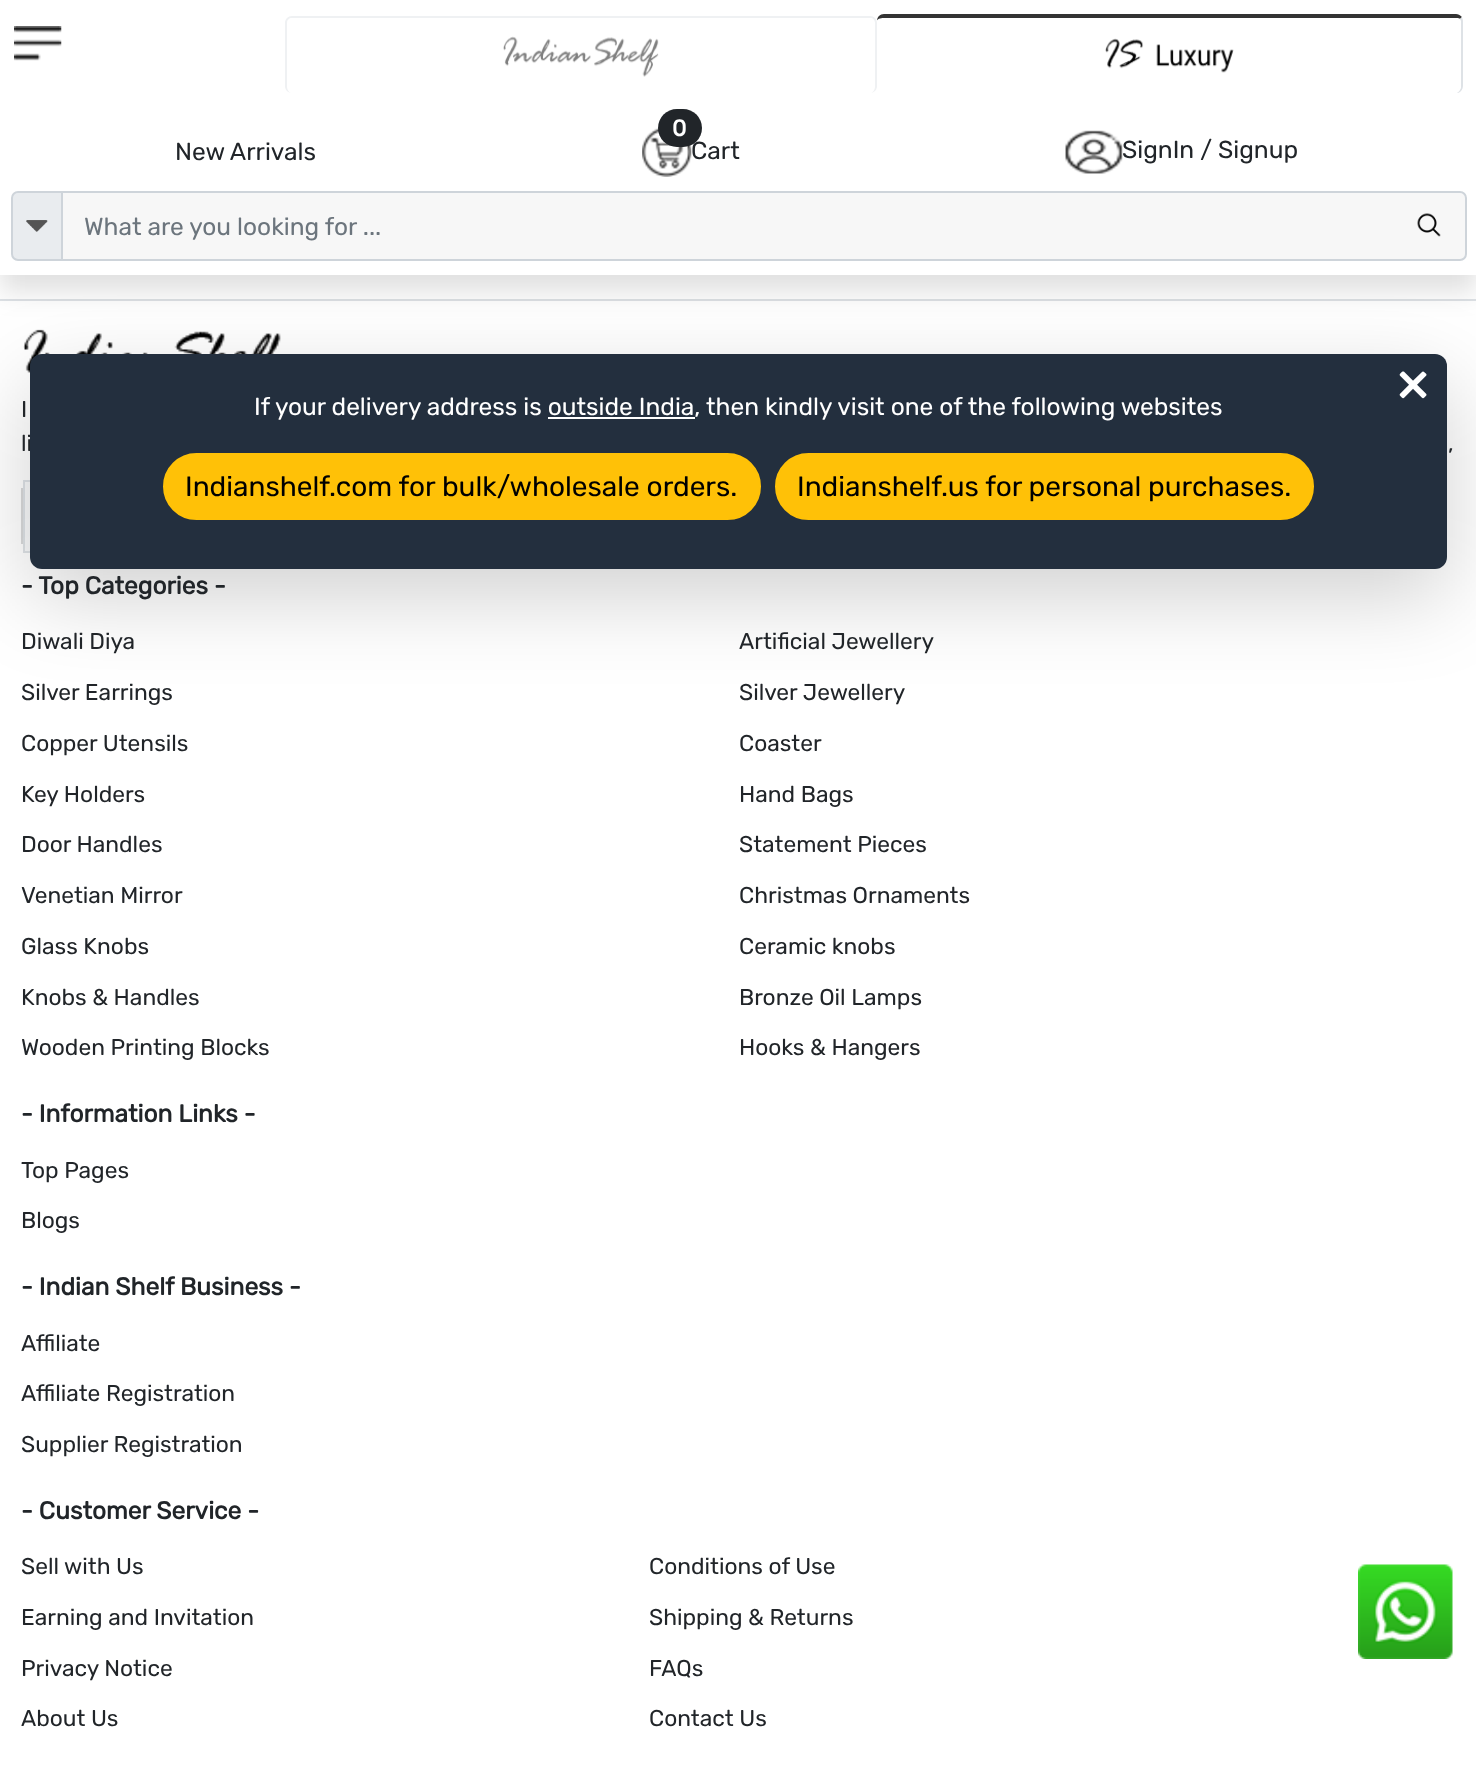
(async () => {
    const canvas = document.querySelector("canvas");
    canvas.width = 1476;
    canvas.height = 1770;
    const context = canvas.getContext("2d");
    context.miterLimit = 4;
    context.fontKerning = "normal";
    function write(s, x, y, font, color) {
        context.font = font;
        context.fillStyle = color;
        context.fillText(s, x, y);
    }
    function block(x, y, w, h, color) {
        context.fillStyle = color;
        context.fillRect(x, y, w, h);
    }
    function card(x, y, w, h, r, color) {
        context.fillStyle = color;
        context.beginPath();
        context.roundRect(x, y, w, h, r);
        context.fill();
    }
    async function photo(src, x, y, w, h) {
        const img = new Image();
        img.src = src;
        await img.decode();
        context.drawImage(img, x, y, w, h);
    }

    block(0, 0, 1476, 1770, "rgb(255, 255, 255)");
    block(0, 299, 1476, 2, "rgb(222, 226, 230)");
    await photo("media/9.png", 23, 329, 258, 44);
    context.fillStyle = "rgba(0, 0, 0, 0.12)";
    context.filter = "blur(13px)";
    context.beginPath();
    context.rect(0, 18, 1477, 274);
    context.fill();
    context.filter = "none";
    context.strokeStyle = "rgb(217, 218, 219)";
    context.lineWidth = 2;
    context.strokeRect(22, 489, 52, 54);
    block(25, 482, 5, 69, "rgb(248, 249, 250)");
    context.strokeStyle = "rgb(222, 226, 230)";
    context.strokeRect(24, 481, 49, 71);
    context.fillStyle = "rgba(0, 0, 0, 0.18)";
    context.filter = "blur(42px)";
    context.beginPath();
    context.roundRect(30, 382, 1417, 215, 12);
    context.fill();
    context.filter = "none";
    block(0, 0, 1476, 275, "rgb(255, 255, 255)");
    await photo("media/1.png", 14, 26, 48, 35);
    context.fillStyle = "rgb(239, 241, 243)";
    context.beginPath();
    context.moveTo(292, 16);
    context.lineTo(870, 16);
    context.bezierCurveTo(874, 16, 877, 19, 877, 23);
    context.lineTo(877, 86);
    context.bezierCurveTo(877, 90, 874, 93, 870, 93);
    context.lineTo(292, 93);
    context.bezierCurveTo(288, 93, 285, 90, 285, 86);
    context.lineTo(285, 23);
    context.bezierCurveTo(285, 19, 288, 16, 292, 16);
    context.closePath();
    context.moveTo(292, 18);
    context.lineTo(870, 18);
    context.bezierCurveTo(873, 18, 875, 20, 875, 23);
    context.lineTo(875, 86);
    context.bezierCurveTo(875, 90, 873, 93, 870, 93);
    context.lineTo(292, 93);
    context.bezierCurveTo(289, 93, 287, 90, 287, 86);
    context.lineTo(287, 23);
    context.bezierCurveTo(287, 20, 289, 18, 292, 18);
    context.closePath();
    context.fill("evenodd");
    await photo("media/2.png", 503, 36, 156, 41);
    context.fillStyle = "rgb(51, 51, 51)";
    context.beginPath();
    context.moveTo(884, 14);
    context.lineTo(1456, 14);
    context.bezierCurveTo(1458, 14, 1460, 15, 1462, 17);
    context.lineTo(1460, 19);
    context.bezierCurveTo(1460, 18, 1458, 18, 1456, 18);
    context.lineTo(884, 18);
    context.bezierCurveTo(880, 18, 877, 19, 877, 21);
    context.bezierCurveTo(877, 17, 880, 14, 884, 14);
    context.closePath();
    context.fill();
    context.fillStyle = "rgb(222, 226, 230)";
    context.beginPath();
    context.moveTo(1457, 93);
    context.bezierCurveTo(1459, 92, 1460, 90, 1461, 88);
    context.lineTo(1461, 21);
    context.lineTo(1460, 19);
    context.lineTo(1462, 17);
    context.bezierCurveTo(1462, 18, 1463, 19, 1463, 21);
    context.lineTo(1463, 86);
    context.bezierCurveTo(1463, 89, 1461, 92, 1458, 93);
    context.closePath();
    context.fill();
    await photo("media/3.png", 1105, 38, 129, 35);
    write("New Arrivals", 175, 160, "300 24.5px Rubik", "rgb(33, 37, 41)");
    await photo("media/4.png", 642, 127, 50, 50);
    card(658, 109, 44, 38, 19, "rgb(33, 37, 41)");
    write("0", 672, 136, "bold 22.75px Rubik", "rgb(255, 255, 255)");
    write("Cart", 691, 159, "300 24.5px Rubik", "rgb(33, 37, 41)");
    await photo("media/5.png", 1065, 130, 58, 44);
    write("SignIn / Signup", 1122, 158, "300 24.5px Rubik", "rgb(33, 37, 41)");
    context.fillStyle = "rgb(247, 247, 247)";
    context.beginPath();
    context.roundRect(62, 192, 1404, 68, [0, 6, 6, 0]);
    context.fill();
    context.strokeStyle = "rgb(206, 212, 218)";
    context.stroke();
    context.fillStyle = "rgb(233, 236, 239)";
    context.beginPath();
    context.roundRect(12, 192, 50, 68, [6, 0, 0, 6]);
    context.fill();
    context.stroke();
    await photo("media/6.png", 26, 220, 22, 12);
    write("What are you looking for ...", 84, 235, "300 24.5px Rubik", "rgb(108, 117, 125)");
    await photo("media/7.png", 1417, 213, 24, 24);
    await photo("media/8.png", 1358, 1564, 95, 95);
    write("li", 21, 451, "300 22.75px Rubik", "rgb(33, 37, 41)");
    card(30, 354, 1417, 215, 12, "rgb(35, 47, 62)");
    write("×", 1396, 403, "300 61px Rubik", "rgb(255, 255, 255)");
    write("If your delivery address is outside India, then kindly visit one of the following websites", 254, 415, "300 24.5px Rubik", "rgb(255, 255, 255)");
    block(548, 417, 147, 2, "rgb(255, 255, 255)");
    context.fillStyle = "rgb(255, 193, 7)";
    context.beginPath();
    context.roundRect(164, 454, 596, 65, 32.5);
    context.fill();
    context.strokeStyle = "rgb(255, 193, 7)";
    context.stroke();
    write("Indianshelf.com for bulk/wholesale orders.", 185, 496, "300 28px Rubik", "rgb(0, 0, 0)");
    context.fillStyle = "rgb(255, 193, 7)";
    context.beginPath();
    context.roundRect(776, 454, 537, 65, 32.5);
    context.fill();
    context.stroke();
    write("Indianshelf.us for personal purchases.", 797, 496, "300 28px Rubik", "rgb(0, 0, 0)");
    write("I", 21, 417, "300 22.75px Rubik", "rgb(33, 37, 41)");
    write(",", 1448, 451, "300 22.75px Rubik", "rgb(33, 37, 41)");
    write("- Top Categories -", 21, 594, "bold 24.5px Rubik", "rgb(33, 37, 41)");
    write("Diwali Diya", 21, 649, "300 22.75px Rubik", "rgb(33, 37, 41)");
    write("Artificial Jewellery", 739, 649, "300 22.75px Rubik", "rgb(33, 37, 41)");
    write("Silver Earrings", 21, 700, "300 22.75px Rubik", "rgb(33, 37, 41)");
    write("Silver Jewellery", 739, 700, "300 22.75px Rubik", "rgb(33, 37, 41)");
    write("Copper Utensils", 21, 751, "300 22.75px Rubik", "rgb(33, 37, 41)");
    write("Coaster", 739, 751, "300 22.75px Rubik", "rgb(33, 37, 41)");
    write("Key Holders", 21, 802, "300 22.75px Rubik", "rgb(33, 37, 41)");
    write("Hand Bags", 739, 802, "300 22.75px Rubik", "rgb(33, 37, 41)");
    write("Door Handles", 21, 852, "300 22.75px Rubik", "rgb(33, 37, 41)");
    write("Statement Pieces", 739, 852, "300 22.75px Rubik", "rgb(33, 37, 41)");
    write("Venetian Mirror", 21, 903, "300 22.75px Rubik", "rgb(33, 37, 41)");
    write("Christmas Ornaments", 739, 903, "300 22.75px Rubik", "rgb(33, 37, 41)");
    write("Glass Knobs", 21, 954, "300 22.75px Rubik", "rgb(33, 37, 41)");
    write("Ceramic knobs", 739, 954, "300 22.75px Rubik", "rgb(33, 37, 41)");
    write("Knobs & Handles", 21, 1005, "300 22.75px Rubik", "rgb(33, 37, 41)");
    write("Bronze Oil Lamps", 739, 1005, "300 22.75px Rubik", "rgb(33, 37, 41)");
    write("Wooden Printing Blocks", 21, 1055, "300 22.75px Rubik", "rgb(33, 37, 41)");
    write("Hooks & Hangers", 739, 1055, "300 22.75px Rubik", "rgb(33, 37, 41)");
    write("- Information Links -", 21, 1122, "bold 24.5px Rubik", "rgb(33, 37, 41)");
    write("Top Pages", 21, 1178, "300 22.75px Rubik", "rgb(33, 37, 41)");
    write("Blogs", 21, 1228, "300 22.75px Rubik", "rgb(33, 37, 41)");
    write("- Indian Shelf Business -", 21, 1295, "bold 24.5px Rubik", "rgb(33, 37, 41)");
    write("Affiliate", 21, 1351, "300 22.75px Rubik", "rgb(33, 37, 41)");
    write("Affiliate Registration", 21, 1401, "300 22.75px Rubik", "rgb(33, 37, 41)");
    write("Supplier Registration", 21, 1452, "300 22.75px Rubik", "rgb(33, 37, 41)");
    write("- Customer Service -", 21, 1519, "bold 24.5px Rubik", "rgb(33, 37, 41)");
    write("Sell with Us", 21, 1574, "300 22.75px Rubik", "rgb(33, 37, 41)");
    write("Conditions of Use", 649, 1574, "300 22.75px Rubik", "rgb(33, 37, 41)");
    write("Earning and Invitation", 21, 1625, "300 22.75px Rubik", "rgb(33, 37, 41)");
    write("Shipping & Returns", 649, 1625, "300 22.75px Rubik", "rgb(33, 37, 41)");
    write("Privacy Notice", 21, 1676, "300 22.75px Rubik", "rgb(33, 37, 41)");
    write("FAQs", 649, 1676, "300 22.75px Rubik", "rgb(33, 37, 41)");
    write("About Us", 21, 1726, "300 22.75px Rubik", "rgb(33, 37, 41)");
    write("Contact Us", 649, 1726, "300 22.75px Rubik", "rgb(33, 37, 41)");
})();
